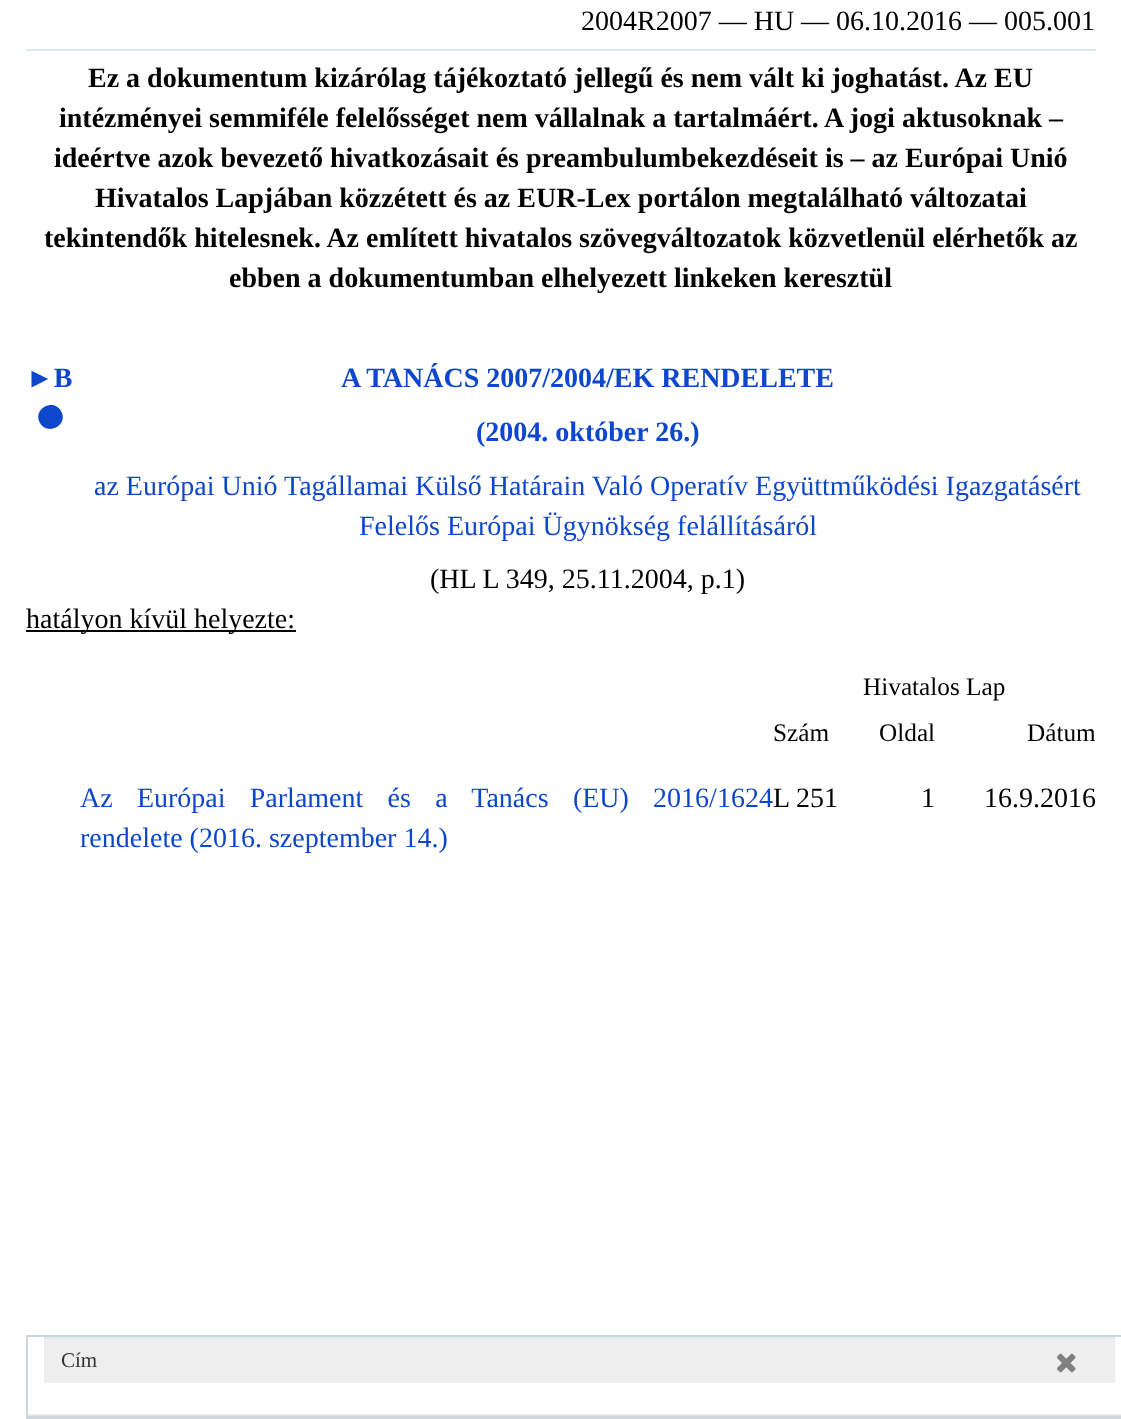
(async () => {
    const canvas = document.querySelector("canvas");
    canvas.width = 1121;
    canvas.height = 1419;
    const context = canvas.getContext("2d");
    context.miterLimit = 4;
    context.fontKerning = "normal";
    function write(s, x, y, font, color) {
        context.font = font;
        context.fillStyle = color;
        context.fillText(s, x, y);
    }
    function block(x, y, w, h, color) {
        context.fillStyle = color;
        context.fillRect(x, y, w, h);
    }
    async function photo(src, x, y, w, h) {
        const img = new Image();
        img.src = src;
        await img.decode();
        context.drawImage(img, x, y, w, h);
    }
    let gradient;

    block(0, 0, 1121, 1419, "rgb(255, 255, 255)");
    write("2004R2007 — HU — 06.10.2016 — 005.001", 581, 30, "28px Liberation Serif", "rgb(0, 0, 0)");
    block(26, 49, 1070, 2, "rgb(222, 232, 236)");
    write("Ez a dokumentum kizárólag tájékoztató jellegű és nem vált ki joghatást. Az EU", 88, 87, "bold 28px Liberation Serif", "rgb(0, 0, 0)");
    write("intézményei semmiféle felelősséget nem vállalnak a tartalmáért. A jogi aktusoknak –", 59, 127, "bold 28px Liberation Serif", "rgb(0, 0, 0)");
    write("ideértve azok bevezető hivatkozásait és preambulumbekezdéseit is – az Európai Unió", 54, 167, "bold 28px Liberation Serif", "rgb(0, 0, 0)");
    write("Hivatalos Lapjában közzétett és az EUR-Lex portálon megtalálható változatai", 95, 207, "bold 28px Liberation Serif", "rgb(0, 0, 0)");
    write("tekintendők hitelesnek. Az említett hivatalos szövegváltozatok közvetlenül elérhetők az", 44, 247, "bold 28px Liberation Serif", "rgb(0, 0, 0)");
    write("ebben a dokumentumban elhelyezett linkeken keresztül", 229, 287, "bold 28px Liberation Serif", "rgb(0, 0, 0)");
    write("►B", 26, 387, "bold 28px Liberation Serif", "rgb(14, 71, 203)");
    context.beginPath();
    context.moveTo(61, 411);
    context.bezierCurveTo(69, 424.5, 48, 436.5, 40, 423);
    context.bezierCurveTo(32, 409.5, 53, 397.5, 61, 411);
    context.closePath();
    context.fill();
    write("A TANÁCS 2007/2004/EK RENDELETE", 341, 387, "bold 28px Liberation Serif", "rgb(14, 71, 203)");
    write("(2004. október 26.)", 476, 441, "bold 28px Liberation Serif", "rgb(14, 71, 203)");
    write("az Európai Unió Tagállamai Külső Határain Való Operatív Együttműködési Igazgatásért", 94, 495, "28px Liberation Serif", "rgb(14, 71, 203)");
    write("Felelős Európai Ügynökség felállításáról", 359, 535, "28px Liberation Serif", "rgb(14, 71, 203)");
    write("(HL L 349, 25.11.2004, p.1)", 430, 588, "28px Liberation Serif", "rgb(0, 0, 0)");
    block(26, 630, 270, 2, "rgb(0, 0, 0)");
    write("hatályon kívül helyezte:", 26, 628, "28px Liberation Serif", "rgb(0, 0, 0)");
    write("Hivatalos Lap", 863, 695, "25.25px Liberation Serif", "rgb(0, 0, 0)");
    write("Szám", 773, 741, "25.25px Liberation Serif", "rgb(0, 0, 0)");
    write("Oldal", 879, 741, "25.25px Liberation Serif", "rgb(0, 0, 0)");
    write("Dátum", 1027, 741, "25.25px Liberation Serif", "rgb(0, 0, 0)");
    context.wordSpacing = "17.25px";
    write("Az Európai Parlament és a Tanács (EU) 2016/1624", 80, 807, "28px Liberation Serif", "rgb(14, 71, 203)");
    context.wordSpacing = "0px";
    write("rendelete (2016. szeptember 14.)", 80, 847, "28px Liberation Serif", "rgb(14, 71, 203)");
    write("L 251", 773, 807, "28px Liberation Serif", "rgb(0, 0, 0)");
    write("1", 921, 807, "28px Liberation Serif", "rgb(0, 0, 0)");
    write("16.9.2016", 984, 807, "28px Liberation Serif", "rgb(0, 0, 0)");
    gradient = context.createLinearGradient(580, 1418, 580, 1413);
    gradient.addColorStop(0, "rgb(195, 195, 197)");
    gradient.addColorStop(1, "rgb(255, 255, 255)");
    context.fillStyle = gradient;
    context.fillRect(28, 1414, 1093, 3);
    context.strokeStyle = "rgb(202, 215, 220)";
    context.lineWidth = 2;
    context.strokeRect(27, 1336, 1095, 82);
    block(44, 1339, 1071, 44, "rgb(238, 238, 238)");
    block(44, 1337, 1071, 2, "rgb(222, 232, 236)");
    write("Cím", 61, 1367, "21px Liberation Serif", "rgb(51, 51, 51)");
    await photo("media/1.png", 1057, 1353, 19, 20);
})();
